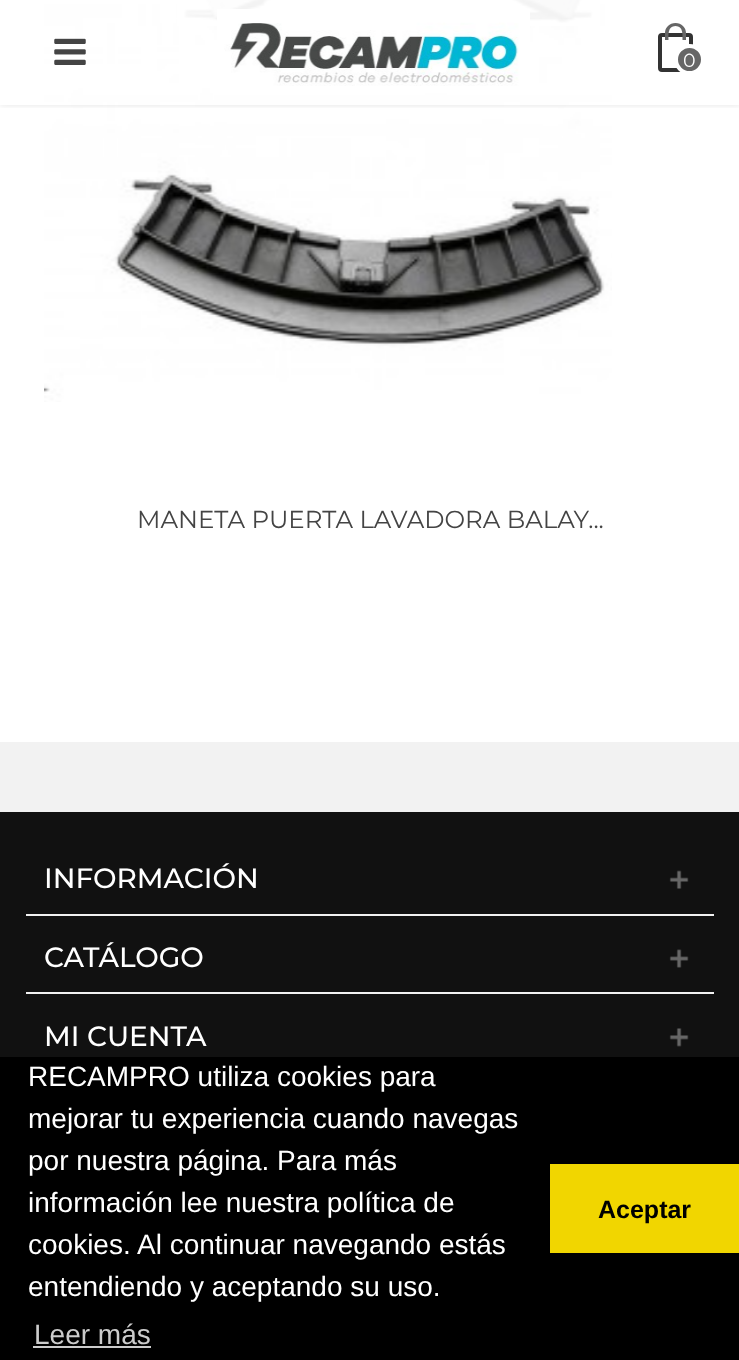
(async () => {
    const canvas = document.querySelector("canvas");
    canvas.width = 739;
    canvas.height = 1360;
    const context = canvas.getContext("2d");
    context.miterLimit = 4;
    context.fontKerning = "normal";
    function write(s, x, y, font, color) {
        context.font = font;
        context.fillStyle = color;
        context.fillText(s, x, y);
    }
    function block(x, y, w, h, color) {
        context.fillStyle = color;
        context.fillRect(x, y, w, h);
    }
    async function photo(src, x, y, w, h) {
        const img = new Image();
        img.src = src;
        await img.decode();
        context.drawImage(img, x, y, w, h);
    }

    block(0, 0, 739, 1360, "rgb(255, 255, 255)");
    await photo("media/3.png", 44, 0, 568, 402);
    context.save();
    context.beginPath();
    context.rect(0, 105, 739, 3);
    context.clip();
    context.fillStyle = "rgba(0, 0, 0, 0.1)";
    context.filter = "blur(3.5px)";
    context.beginPath();
    context.rect(0, 0, 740, 105);
    context.fill();
    context.filter = "none";
    context.restore();
    block(177, 0, 423, 26, "rgba(255, 255, 255, 0.95)");
    await photo("media/1.png", 54, 38, 32, 27);
    await photo("media/2.png", 217, 9, 313, 77);
    context.beginPath();
    context.roundRect(660, 35, 31, 35, 2);
    context.strokeStyle = "rgb(51, 51, 51)";
    context.lineWidth = 4;
    context.stroke();
    context.fillStyle = "rgb(102, 102, 102)";
    context.beginPath();
    context.moveTo(675.5, 23);
    context.bezierCurveTo(681.5, 23, 686, 27.5, 686, 33);
    context.lineTo(686, 40);
    context.lineTo(665, 40);
    context.lineTo(665, 33);
    context.bezierCurveTo(665, 27.5, 669.5, 23, 675.5, 23);
    context.closePath();
    context.moveTo(675.5, 26);
    context.bezierCurveTo(683.5, 26, 682.5, 35, 682.5, 40);
    context.lineTo(668.5, 40);
    context.bezierCurveTo(668.5, 35, 667.5, 26, 675.5, 26);
    context.closePath();
    context.fill("evenodd");
    context.beginPath();
    context.arc(689.5, 59.5, 13.5, 0, Math.PI * 2);
    context.fill();
    context.strokeStyle = "rgb(255, 255, 255)";
    context.stroke();
    write("0", 683, 67, "19px Montserrat", "rgb(255, 255, 255)");
    write("MANETA PUERTA LAVADORA BALAY...", 137, 528, "24.5px Montserrat", "rgb(68, 68, 68)");
    block(0, 742, 739, 70, "rgb(242, 242, 242)");
    block(0, 812, 739, 245, "rgb(17, 17, 17)");
    block(26, 914, 688, 2, "rgb(242, 242, 242)");
    write("INFORMACIÓN", 44, 888, "500 28px Montserrat", "rgb(255, 255, 255)");
    await photo("media/4.png", 669, 870, 20, 19);
    block(26, 992, 688, 2, "rgb(242, 242, 242)");
    write("CATÁLOGO", 44, 967, "500 28px Montserrat", "rgb(255, 255, 255)");
    await photo("media/5.png", 669, 949, 20, 19);
    write("MI CUENTA", 44, 1046, "500 28px Montserrat", "rgb(255, 255, 255)");
    await photo("media/6.png", 669, 1028, 20, 19);
    block(0, 1057, 739, 303, "rgb(0, 0, 0)");
    write("RECAMPRO utiliza cookies para", 28, 1086, "28px Liberation Sans", "rgb(255, 255, 255)");
    write("mejorar tu experiencia cuando navegas", 28, 1128, "28px Liberation Sans", "rgb(255, 255, 255)");
    write("por nuestra página. Para más", 28, 1170, "28px Liberation Sans", "rgb(255, 255, 255)");
    write("información lee nuestra política de", 28, 1212, "28px Liberation Sans", "rgb(255, 255, 255)");
    write("cookies. Al continuar navegando estás", 28, 1254, "28px Liberation Sans", "rgb(255, 255, 255)");
    write("entendiendo y aceptando su uso.", 28, 1296, "28px Liberation Sans", "rgb(255, 255, 255)");
    write("Leer más", 34, 1344, "28px Liberation Sans", "rgb(204, 204, 204)");
    block(33, 1346, 118, 2, "rgb(204, 204, 204)");
    block(550, 1164, 189, 89, "rgb(241, 214, 0)");
    write("Aceptar", 598, 1218, "bold 25px Liberation Sans", "rgb(0, 0, 0)");
})();
